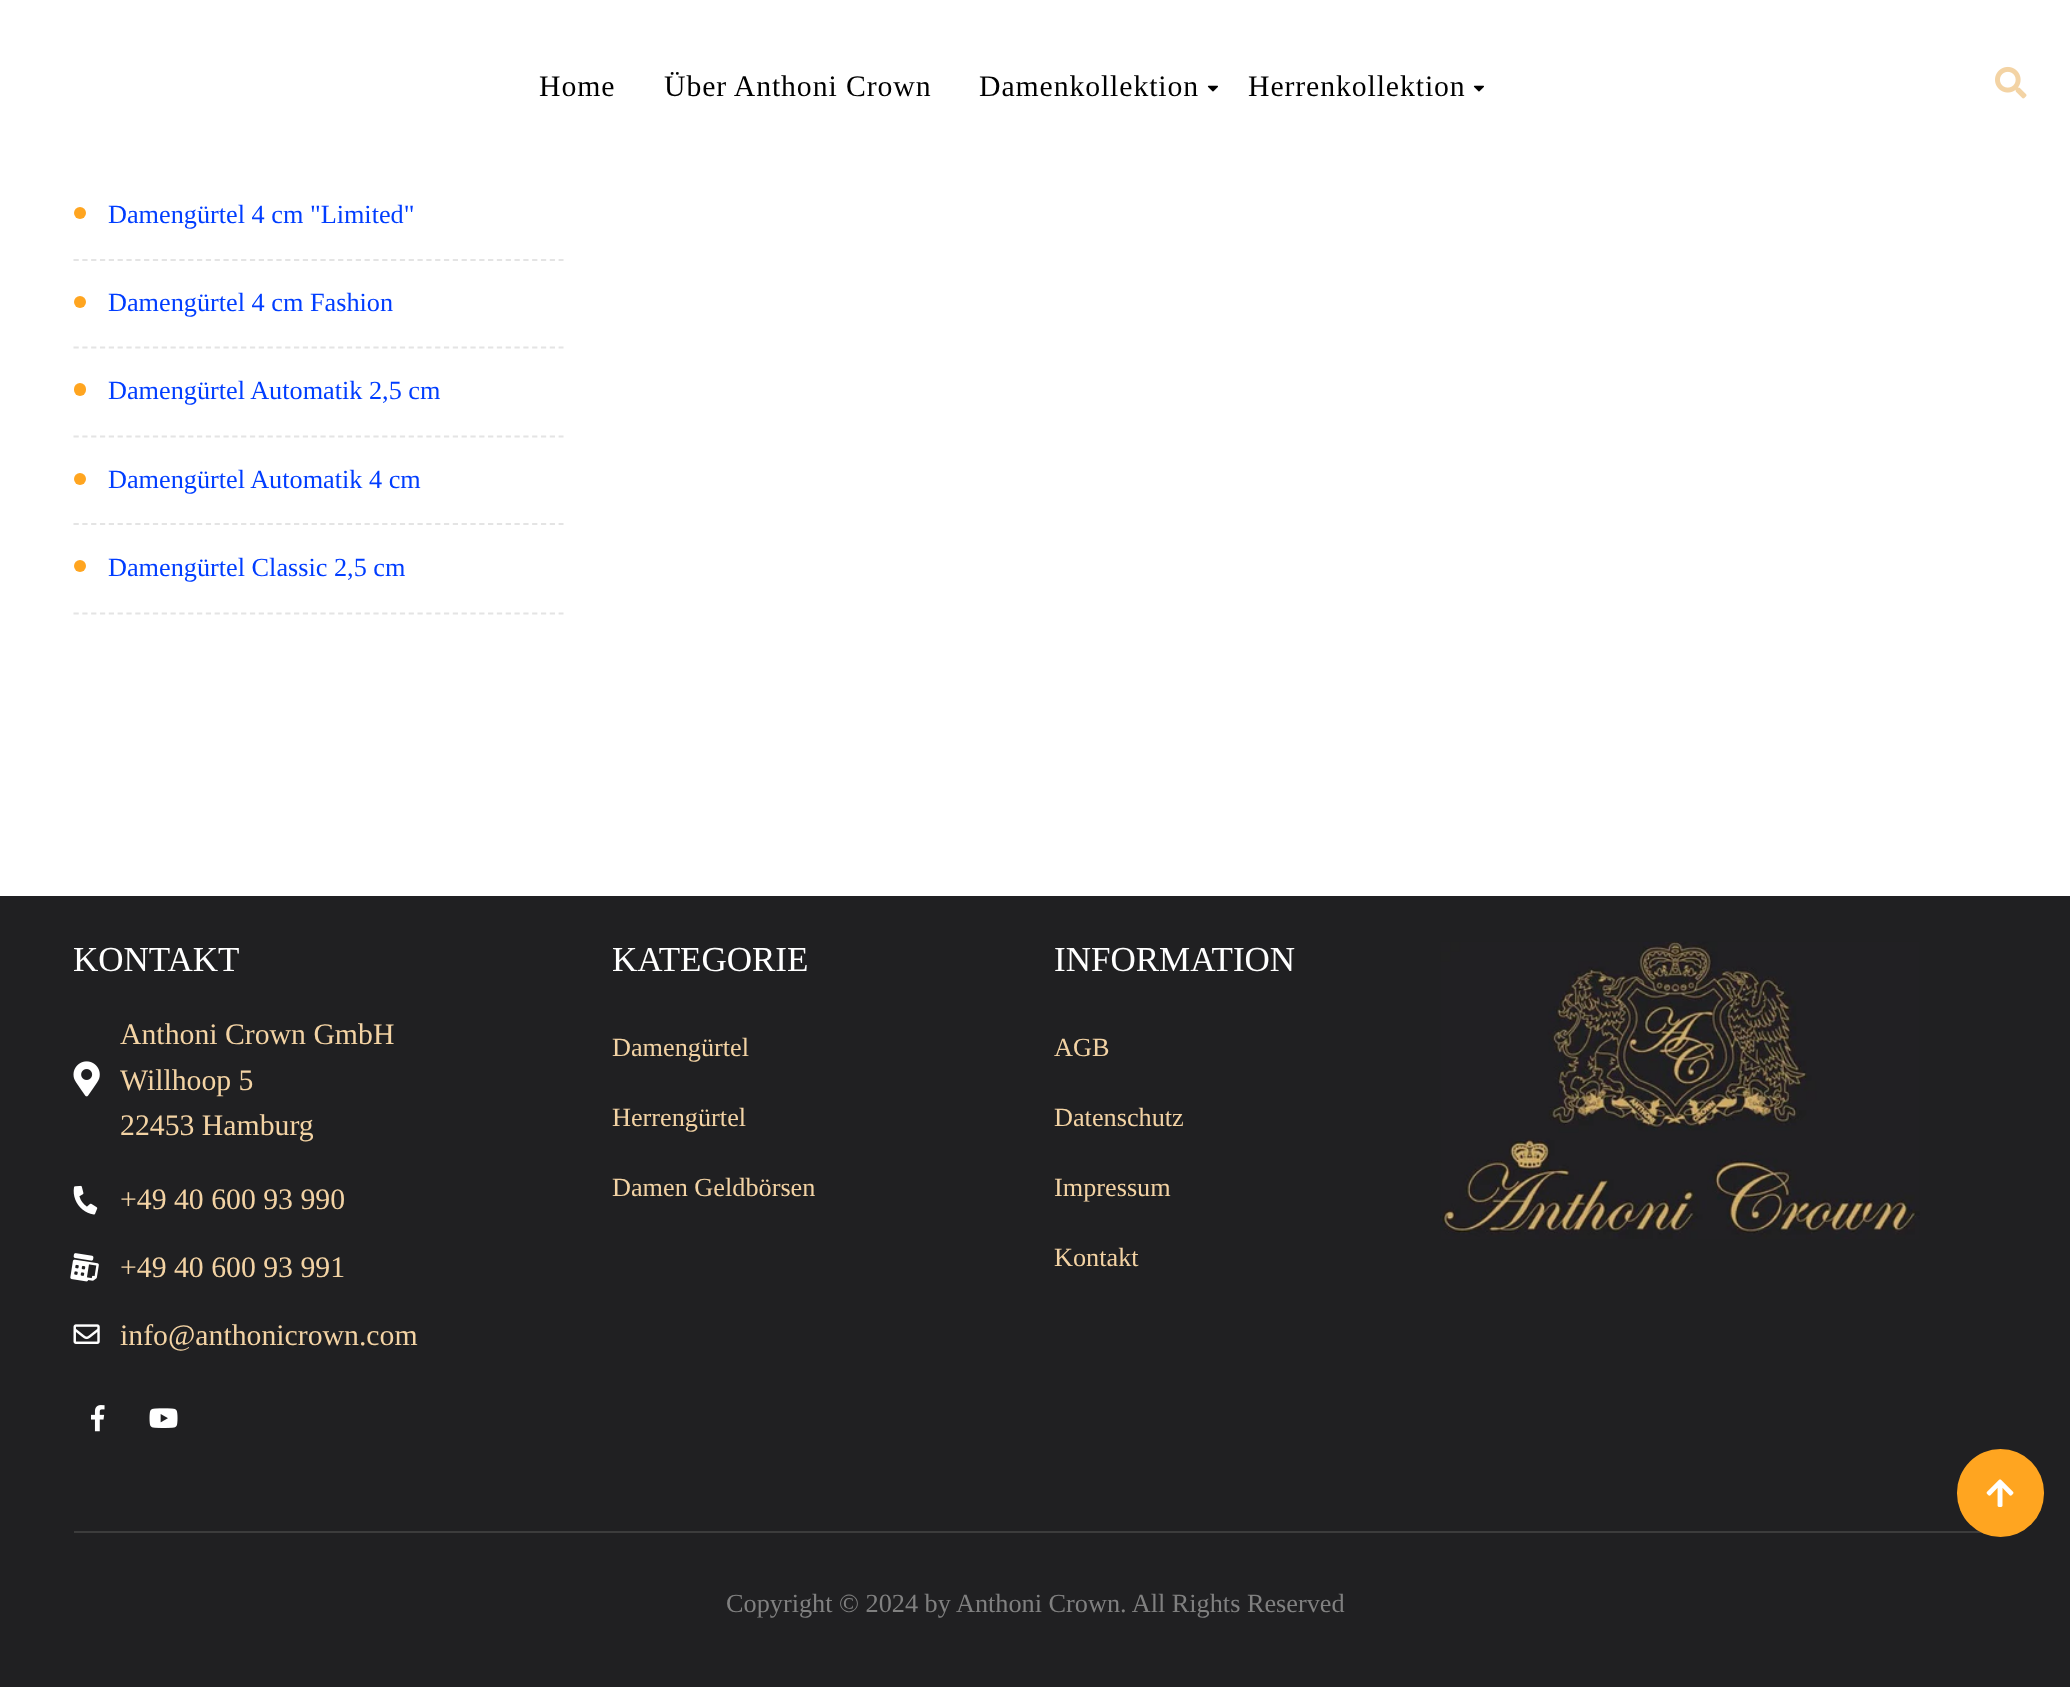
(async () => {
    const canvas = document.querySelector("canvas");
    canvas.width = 2070;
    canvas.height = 1687;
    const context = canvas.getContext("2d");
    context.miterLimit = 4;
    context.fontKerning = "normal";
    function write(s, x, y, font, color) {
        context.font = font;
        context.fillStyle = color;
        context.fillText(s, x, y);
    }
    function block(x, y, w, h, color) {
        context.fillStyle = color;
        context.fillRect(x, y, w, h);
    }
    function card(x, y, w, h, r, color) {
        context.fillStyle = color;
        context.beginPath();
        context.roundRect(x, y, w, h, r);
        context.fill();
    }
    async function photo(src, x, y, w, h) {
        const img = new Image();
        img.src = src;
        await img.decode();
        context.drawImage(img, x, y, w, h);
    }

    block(0, 0, 2070, 1687, "rgb(255, 255, 255)");
    context.letterSpacing = "0.9px";
    write("Home", 539, 96, "29.75px Liberation Serif", "rgb(0, 0, 0)");
    write("Über Anthoni Crown", 664, 96, "29.75px Liberation Serif", "rgb(0, 0, 0)");
    write("Damenkollektion", 979, 96, "29.75px Liberation Serif", "rgb(0, 0, 0)");
    await photo("media/1.png", 1207, 85, 11, 7);
    write("Herrenkollektion", 1248, 96, "29.75px Liberation Serif", "rgb(0, 0, 0)");
    await photo("media/1.png", 1473, 85, 11, 7);
    await photo("media/2.png", 1995, 66, 32, 33);
    context.beginPath();
    context.moveTo(73.5, 260);
    context.lineTo(563.5, 260);
    context.strokeStyle = "rgb(228, 228, 228)";
    context.lineWidth = 1.8;
    context.setLineDash([5.25, 3.57]);
    context.stroke();
    context.fillStyle = "rgb(255, 165, 32)";
    context.beginPath();
    context.arc(80, 213, 6, 0, Math.PI * 2);
    context.fill();
    context.letterSpacing = "0px";
    write("Damengürtel 4 cm \"Limited\"", 108, 223, "26.25px Liberation Serif", "rgb(0, 61, 255)");
    context.beginPath();
    context.moveTo(73.5, 347.5);
    context.lineTo(563.5, 347.5);
    context.stroke();
    context.fillStyle = "rgb(255, 165, 32)";
    context.beginPath();
    context.arc(80, 302, 6, 0, Math.PI * 2);
    context.fill();
    write("Damengürtel 4 cm Fashion", 108, 311, "26.25px Liberation Serif", "rgb(0, 61, 255)");
    context.beginPath();
    context.moveTo(73.5, 436.5);
    context.lineTo(563.5, 436.5);
    context.stroke();
    card(74, 383, 12, 13, 6, "rgb(255, 165, 32)");
    write("Damengürtel Automatik 2,5 cm", 108, 399, "26.25px Liberation Serif", "rgb(0, 61, 255)");
    context.beginPath();
    context.moveTo(73.5, 524);
    context.lineTo(563.5, 524);
    context.stroke();
    context.fillStyle = "rgb(255, 165, 32)";
    context.beginPath();
    context.arc(80, 479, 6, 0, Math.PI * 2);
    context.fill();
    write("Damengürtel Automatik 4 cm", 108, 488, "26.25px Liberation Serif", "rgb(0, 61, 255)");
    context.beginPath();
    context.moveTo(73.5, 613.5);
    context.lineTo(563.5, 613.5);
    context.stroke();
    context.fillStyle = "rgb(255, 165, 32)";
    context.beginPath();
    context.arc(80, 566, 6, 0, Math.PI * 2);
    context.fill();
    write("Damengürtel Classic 2,5 cm", 108, 576, "26.25px Liberation Serif", "rgb(0, 61, 255)");
    block(0, 896, 2070, 791, "rgb(32, 32, 34)");
    write("KONTAKT", 73, 971, "35px Liberation Serif", "rgb(255, 255, 255)");
    await photo("media/3.png", 73, 1061, 27, 36);
    write("Anthoni Crown GmbH", 120, 1044, "29.75px Liberation Serif", "rgb(243, 211, 164)");
    write("Willhoop 5", 120, 1090, "29.75px Liberation Serif", "rgb(243, 211, 164)");
    write("22453 Hamburg", 120, 1135, "29.75px Liberation Serif", "rgb(243, 211, 164)");
    await photo("media/4.png", 73, 1185, 25, 30);
    write("+49 40 600 93 990", 120, 1209, "29.75px Liberation Serif", "rgb(243, 211, 164)");
    await photo("media/5.png", 70, 1253, 29, 29);
    write("+49 40 600 93 991", 120, 1277, "29.75px Liberation Serif", "rgb(243, 211, 164)");
    await photo("media/6.png", 73, 1324, 27, 20);
    write("info@anthonicrown.com", 120, 1345, "29.75px Liberation Serif", "rgb(243, 211, 164)");
    await photo("media/7.png", 91, 1405, 14, 27);
    await photo("media/8.png", 149, 1408, 29, 20);
    write("KATEGORIE", 612, 971, "35px Liberation Serif", "rgb(255, 255, 255)");
    write("Damengürtel", 612, 1056, "26.25px Liberation Serif", "rgb(243, 211, 164)");
    write("Herrengürtel", 612, 1126, "26.25px Liberation Serif", "rgb(243, 211, 164)");
    write("Damen Geldbörsen", 612, 1196, "26.25px Liberation Serif", "rgb(243, 211, 164)");
    write("INFORMATION", 1054, 971, "35px Liberation Serif", "rgb(255, 255, 255)");
    write("AGB", 1054, 1056, "26.25px Liberation Serif", "rgb(243, 211, 164)");
    write("Datenschutz", 1054, 1126, "26.25px Liberation Serif", "rgb(243, 211, 164)");
    write("Impressum", 1054, 1196, "26.25px Liberation Serif", "rgb(243, 211, 164)");
    write("Kontakt", 1054, 1266, "26.25px Liberation Serif", "rgb(243, 211, 164)");
    await photo("media/9.png", 1440, 941, 480, 298);
    block(74, 1531, 1909, 2, "rgb(60, 60, 60)");
    write("Copyright © 2024 by Anthoni Crown. All Rights Reserved", 726, 1612, "26.25px Liberation Serif", "rgb(128, 128, 128)");
    card(1957, 1449, 87, 88, 43.5, "rgb(255, 165, 32)");
    await photo("media/10.png", 1986, 1479, 28, 28);
})();
